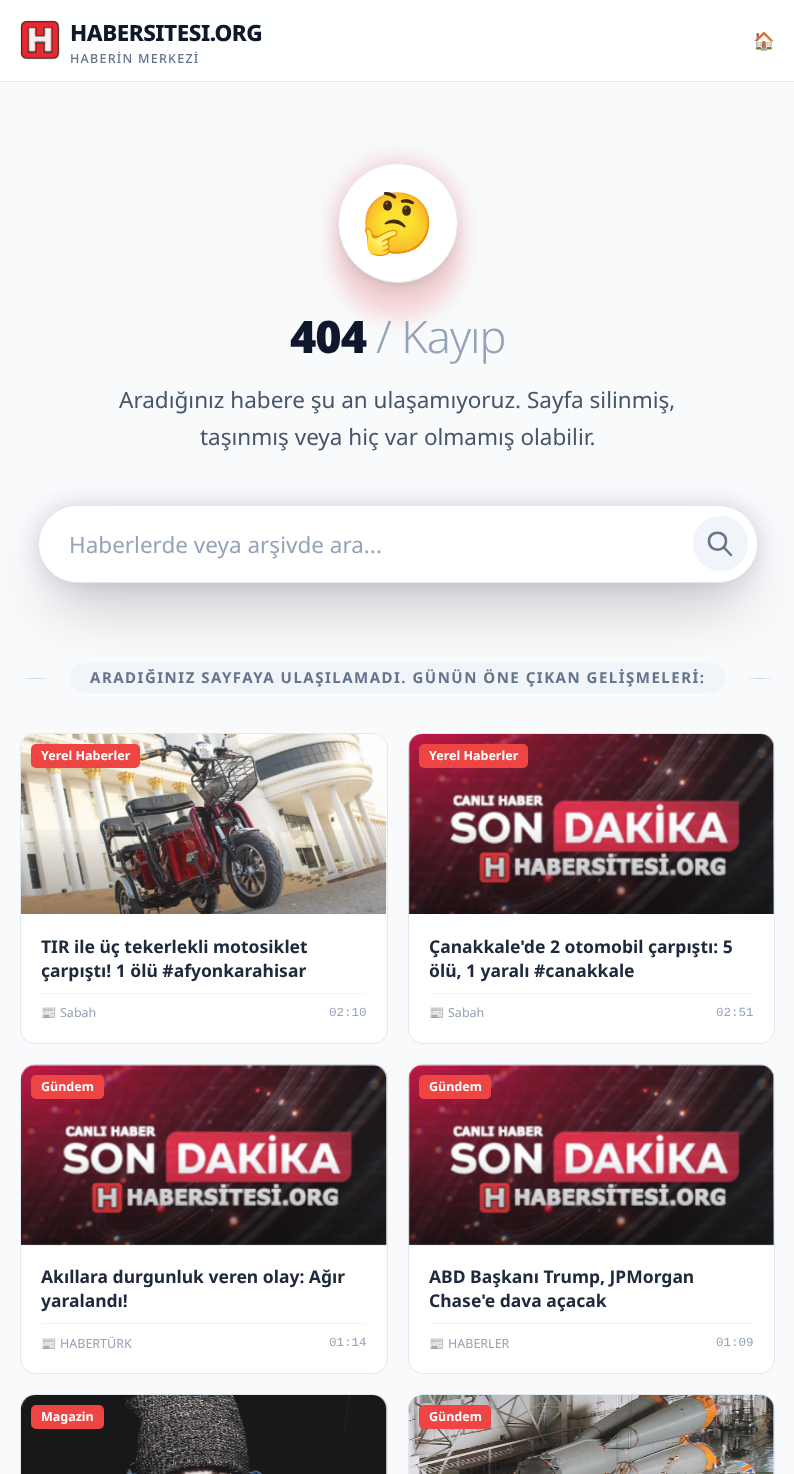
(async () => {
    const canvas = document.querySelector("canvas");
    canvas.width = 794;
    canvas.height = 1474;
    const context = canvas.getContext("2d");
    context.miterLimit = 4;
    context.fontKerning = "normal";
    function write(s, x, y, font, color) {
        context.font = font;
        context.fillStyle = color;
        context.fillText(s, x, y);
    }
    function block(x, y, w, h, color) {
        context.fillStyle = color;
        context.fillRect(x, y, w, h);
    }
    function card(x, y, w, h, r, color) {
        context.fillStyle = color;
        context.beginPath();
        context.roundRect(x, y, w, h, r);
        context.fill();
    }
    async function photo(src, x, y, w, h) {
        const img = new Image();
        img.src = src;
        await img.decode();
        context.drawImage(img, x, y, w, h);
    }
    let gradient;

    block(0, 0, 794, 1474, "rgb(248, 250, 252)");
    block(0, 0, 794, 81, "rgb(254, 255, 255)");
    block(0, 81, 794, 1, "rgb(226, 232, 240)");
    await photo("media/1.png", 20, 20, 40, 40);
    context.letterSpacing = "-0.5px";
    write("HABERSITESI.ORG", 70, 41, "800 22.5px Noto Sans", "rgb(15, 23, 42)");
    context.letterSpacing = "1.25px";
    write("HABERİN MERKEZİ", 70, 63, "500 12.5px Noto Sans", "rgb(100, 116, 139)");
    context.letterSpacing = "0px";
    write("🏠", 753, 47, "17.5px Noto Color Emoji", "rgb(71, 85, 105)");
    context.fillStyle = "rgba(239, 68, 68, 0.2)";
    context.filter = "blur(10px)";
    context.beginPath();
    context.roundRect(333, 158, 130, 160, 65);
    context.fill();
    context.filter = "none";
    context.fillStyle = "rgba(0, 0, 0, 0.1)";
    context.filter = "blur(4px)";
    context.beginPath();
    context.roundRect(343, 173, 110, 110, 55);
    context.fill();
    context.filter = "none";
    context.filter = "blur(9.5px)";
    context.beginPath();
    context.roundRect(341, 179, 113, 112, 56);
    context.fill();
    context.filter = "none";
    context.fillStyle = "rgb(255, 255, 255)";
    context.beginPath();
    context.arc(398, 223, 59.5, 0, Math.PI * 2);
    context.fill();
    context.strokeStyle = "rgb(226, 232, 240)";
    context.stroke();
    write("🤔", 360, 244, "60px Noto Color Emoji", "rgb(239, 68, 68)");
    context.letterSpacing = "-1px";
    write("404", 290, 353, "900 45px Noto Sans", "rgb(15, 23, 42)");
    write("/ Kayıp", 376, 353, "300 45px Noto Sans", "rgb(148, 163, 184)");
    context.letterSpacing = "0px";
    write("Aradığınız habere şu an ulaşamıyoruz. Sayfa silinmiş,", 119, 408, "22.5px Noto Sans", "rgb(71, 85, 105)");
    write("taşınmış veya hiç var olmamış olabilir.", 200, 445, "22.5px Noto Sans", "rgb(71, 85, 105)");
    context.fillStyle = "rgb(223, 212, 228)";
    context.filter = "blur(10px)";
    context.beginPath();
    context.roundRect(38, 505, 720, 78, 39);
    context.fill();
    context.filter = "none";
    gradient = context.createLinearGradient(20, 678, 50, 678);
    gradient.addColorStop(0, "rgb(248, 250, 252)");
    gradient.addColorStop(0.5, "rgb(203, 213, 225)");
    gradient.addColorStop(1, "rgb(248, 250, 252)");
    context.fillStyle = gradient;
    context.fillRect(20, 678, 30, 1);
    card(70, 663, 655, 30, 15, "rgb(241, 245, 249)");
    gradient = context.createLinearGradient(745, 678, 775, 678);
    gradient.addColorStop(0, "rgb(248, 250, 252)");
    gradient.addColorStop(0.5, "rgb(203, 213, 225)");
    gradient.addColorStop(1, "rgb(248, 250, 252)");
    context.fillStyle = gradient;
    context.fillRect(745, 678, 30, 1);
    context.fillStyle = "rgba(0, 0, 0, 0.25)";
    context.filter = "blur(31px)";
    context.beginPath();
    context.roundRect(53, 551, 690, 48, 24);
    context.fill();
    context.filter = "none";
    context.fillStyle = "rgb(255, 255, 255)";
    context.beginPath();
    context.roundRect(38.5, 505.5, 719, 77, 38.5);
    context.fill();
    context.stroke();
    write("Haberlerde veya arşivde ara...", 69, 553, "22.5px Noto Sans", "rgb(148, 163, 184)");
    context.fillStyle = "rgb(241, 245, 249)";
    context.beginPath();
    context.arc(720.5, 543.5, 27.5, 0, Math.PI * 2);
    context.fill();
    context.beginPath();
    context.moveTo(731, 555);
    context.lineTo(724, 547.5);
    context.moveTo(726, 541);
    context.bezierCurveTo(726, 552.5, 709, 552.5, 709, 541);
    context.bezierCurveTo(709, 530, 726, 530, 726, 541);
    context.closePath();
    context.strokeStyle = "rgb(100, 116, 139)";
    context.lineWidth = 2.5;
    context.lineCap = "round";
    context.lineJoin = "round";
    context.stroke();
    context.letterSpacing = "1.5px";
    write("ARADIĞINIZ SAYFAYA ULAŞILAMADI. GÜNÜN ÖNE ÇIKAN GELİŞMELERİ:", 90, 683, "bold 15px Noto Sans", "rgb(100, 116, 139)");
    context.fillStyle = "rgb(255, 255, 255)";
    context.beginPath();
    context.roundRect(20.5, 733.5, 367, 310, 14.5);
    context.fill();
    context.strokeStyle = "rgb(226, 232, 240)";
    context.lineWidth = 1;
    context.lineJoin = "miter";
    context.stroke();
    context.fillStyle = "rgb(241, 245, 249)";
    context.beginPath();
    context.roundRect(21, 734, 365, 180, [14, 14, 0, 0]);
    context.fill();
    await photo("media/2.png", 21, 734, 366, 180);
    context.fillStyle = "rgba(0, 0, 0, 0.05)";
    context.filter = "blur(1px)";
    context.beginPath();
    context.roundRect(31, 745, 109, 24, 5);
    context.fill();
    context.filter = "none";
    card(31, 744, 109, 24, 5, "rgb(239, 68, 68)");
    context.letterSpacing = "0px";
    write("Yerel Haberler", 41, 760, "bold 12.5px Noto Sans", "rgb(255, 255, 255)");
    gradient = context.createLinearGradient(204, 914, 204, 734);
    gradient.addColorStop(0, "rgba(0, 0, 0, 0.36)");
    gradient.addColorStop(0.5, "rgba(0, 0, 0, 0)");
    gradient.addColorStop(1, "rgba(0, 0, 0, 0)");
    context.fillStyle = gradient;
    context.fillRect(21, 829, 365, 85);
    write("TIR ile üç tekerlekli motosiklet", 41, 953, "bold 17.5px Noto Sans", "rgb(30, 41, 59)");
    write("çarpıştı! 1 ölü #afyonkarahisar", 41, 977, "bold 17.5px Noto Sans", "rgb(30, 41, 59)");
    block(41, 993, 325, 1, "rgb(241, 245, 249)");
    write("📰", 41, 1017, "12.5px Noto Color Emoji", "rgb(148, 163, 184)");
    write("Sabah", 60, 1017, "12.5px Noto Sans", "rgb(148, 163, 184)");
    write("02:10", 329, 1016, "12.5px Liberation Mono", "rgb(148, 163, 184)");
    context.fillStyle = "rgb(255, 255, 255)";
    context.beginPath();
    context.roundRect(408.5, 733.5, 366, 310, 14.5);
    context.fill();
    context.stroke();
    context.fillStyle = "rgb(241, 245, 249)";
    context.beginPath();
    context.roundRect(409, 734, 365, 180, [14, 14, 0, 0]);
    context.fill();
    await photo("media/3.png", 408, 734, 366, 180);
    card(419, 744, 109, 24, 5, "rgb(239, 68, 68)");
    write("Yerel Haberler", 429, 760, "bold 12.5px Noto Sans", "rgb(255, 255, 255)");
    gradient = context.createLinearGradient(591, 914, 591, 734);
    gradient.addColorStop(0, "rgba(0, 0, 0, 0.36)");
    gradient.addColorStop(0.5, "rgba(0, 0, 0, 0)");
    gradient.addColorStop(1, "rgba(0, 0, 0, 0)");
    context.fillStyle = gradient;
    context.fillRect(409, 829, 365, 85);
    write("Çanakkale'de 2 otomobil çarpıştı: 5", 429, 953, "bold 17.5px Noto Sans", "rgb(30, 41, 59)");
    write("ölü, 1 yaralı #canakkale", 429, 977, "bold 17.5px Noto Sans", "rgb(30, 41, 59)");
    block(429, 993, 325, 1, "rgb(241, 245, 249)");
    write("📰", 429, 1017, "12.5px Noto Color Emoji", "rgb(148, 163, 184)");
    write("Sabah", 448, 1017, "12.5px Noto Sans", "rgb(148, 163, 184)");
    write("02:51", 716, 1016, "12.5px Liberation Mono", "rgb(148, 163, 184)");
    context.fillStyle = "rgb(255, 255, 255)";
    context.beginPath();
    context.roundRect(20.5, 1064.5, 367, 309, 14.5);
    context.fill();
    context.stroke();
    context.fillStyle = "rgb(241, 245, 249)";
    context.beginPath();
    context.roundRect(21, 1065, 365, 180, [14, 14, 0, 0]);
    context.fill();
    await photo("media/4.png", 21, 1064, 366, 182);
    card(31, 1075, 73, 24, 5, "rgb(239, 68, 68)");
    write("Gündem", 41, 1091, "bold 12.5px Noto Sans", "rgb(255, 255, 255)");
    gradient = context.createLinearGradient(204, 1245, 204, 1065);
    gradient.addColorStop(0, "rgba(0, 0, 0, 0.36)");
    gradient.addColorStop(0.5, "rgba(0, 0, 0, 0)");
    gradient.addColorStop(1, "rgba(0, 0, 0, 0)");
    context.fillStyle = gradient;
    context.fillRect(21, 1160, 365, 85);
    write("Akıllara durgunluk veren olay: Ağır", 41, 1283, "bold 17.5px Noto Sans", "rgb(30, 41, 59)");
    write("yaralandı!", 41, 1307, "bold 17.5px Noto Sans", "rgb(30, 41, 59)");
    block(41, 1323, 325, 1, "rgb(241, 245, 249)");
    write("📰", 41, 1348, "12.5px Noto Color Emoji", "rgb(148, 163, 184)");
    write("HABERTÜRK", 60, 1348, "12.5px Noto Sans", "rgb(148, 163, 184)");
    write("01:14", 329, 1346, "12.5px Liberation Mono", "rgb(148, 163, 184)");
    context.fillStyle = "rgb(255, 255, 255)";
    context.beginPath();
    context.roundRect(408.5, 1064.5, 366, 309, 14.5);
    context.fill();
    context.stroke();
    context.fillStyle = "rgb(241, 245, 249)";
    context.beginPath();
    context.roundRect(409, 1065, 365, 180, [14, 14, 0, 0]);
    context.fill();
    await photo("media/5.png", 408, 1064, 366, 182);
    card(419, 1075, 72, 24, 5, "rgb(239, 68, 68)");
    write("Gündem", 429, 1091, "bold 12.5px Noto Sans", "rgb(255, 255, 255)");
    gradient = context.createLinearGradient(591, 1245, 591, 1065);
    gradient.addColorStop(0, "rgba(0, 0, 0, 0.36)");
    gradient.addColorStop(0.5, "rgba(0, 0, 0, 0)");
    gradient.addColorStop(1, "rgba(0, 0, 0, 0)");
    context.fillStyle = gradient;
    context.fillRect(409, 1160, 365, 85);
    write("ABD Başkanı Trump, JPMorgan", 429, 1283, "bold 17.5px Noto Sans", "rgb(30, 41, 59)");
    write("Chase'e dava açacak", 429, 1307, "bold 17.5px Noto Sans", "rgb(30, 41, 59)");
    block(429, 1323, 325, 1, "rgb(241, 245, 249)");
    write("📰", 429, 1348, "12.5px Noto Color Emoji", "rgb(148, 163, 184)");
    write("HABERLER", 448, 1348, "12.5px Noto Sans", "rgb(148, 163, 184)");
    write("01:09", 716, 1346, "12.5px Liberation Mono", "rgb(148, 163, 184)");
    context.fillStyle = "rgb(255, 255, 255)";
    context.beginPath();
    context.roundRect(20.5, 1394.5, 367, 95, 14.5);
    context.fill();
    context.stroke();
    context.fillStyle = "rgb(241, 245, 249)";
    context.beginPath();
    context.moveTo(35, 1395);
    context.lineTo(372, 1395);
    context.bezierCurveTo(379.5, 1395, 386, 1401.5, 386, 1409);
    context.lineTo(386, 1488);
    context.lineTo(21, 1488);
    context.lineTo(21, 1409);
    context.bezierCurveTo(21, 1401.5, 27.5, 1395, 35, 1395);
    context.closePath();
    context.fill();
    await photo("media/6.png", 21, 1395, 366, 79);
    card(31, 1405, 73, 24, 5, "rgb(239, 68, 68)");
    write("Magazin", 41, 1421, "bold 12.5px Noto Sans", "rgb(255, 255, 255)");
    context.beginPath();
    context.roundRect(408.5, 1394.5, 366, 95, 14.5);
    context.stroke();
    context.fillStyle = "rgb(241, 245, 249)";
    context.beginPath();
    context.moveTo(423, 1395);
    context.lineTo(760, 1395);
    context.bezierCurveTo(767.5, 1395, 774, 1401.5, 774, 1409);
    context.lineTo(774, 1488);
    context.lineTo(409, 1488);
    context.lineTo(409, 1409);
    context.bezierCurveTo(409, 1401.5, 415.5, 1395, 423, 1395);
    context.closePath();
    context.fill();
    await photo("media/7.png", 408, 1395, 366, 79);
    context.fillStyle = "rgba(0, 0, 0, 0.05)";
    context.filter = "blur(1px)";
    context.beginPath();
    context.roundRect(419, 1406, 72, 24, 5);
    context.fill();
    context.filter = "none";
    card(419, 1405, 72, 24, 5, "rgb(239, 68, 68)");
    write("Gündem", 429, 1421, "bold 12.5px Noto Sans", "rgb(255, 255, 255)");
})();
